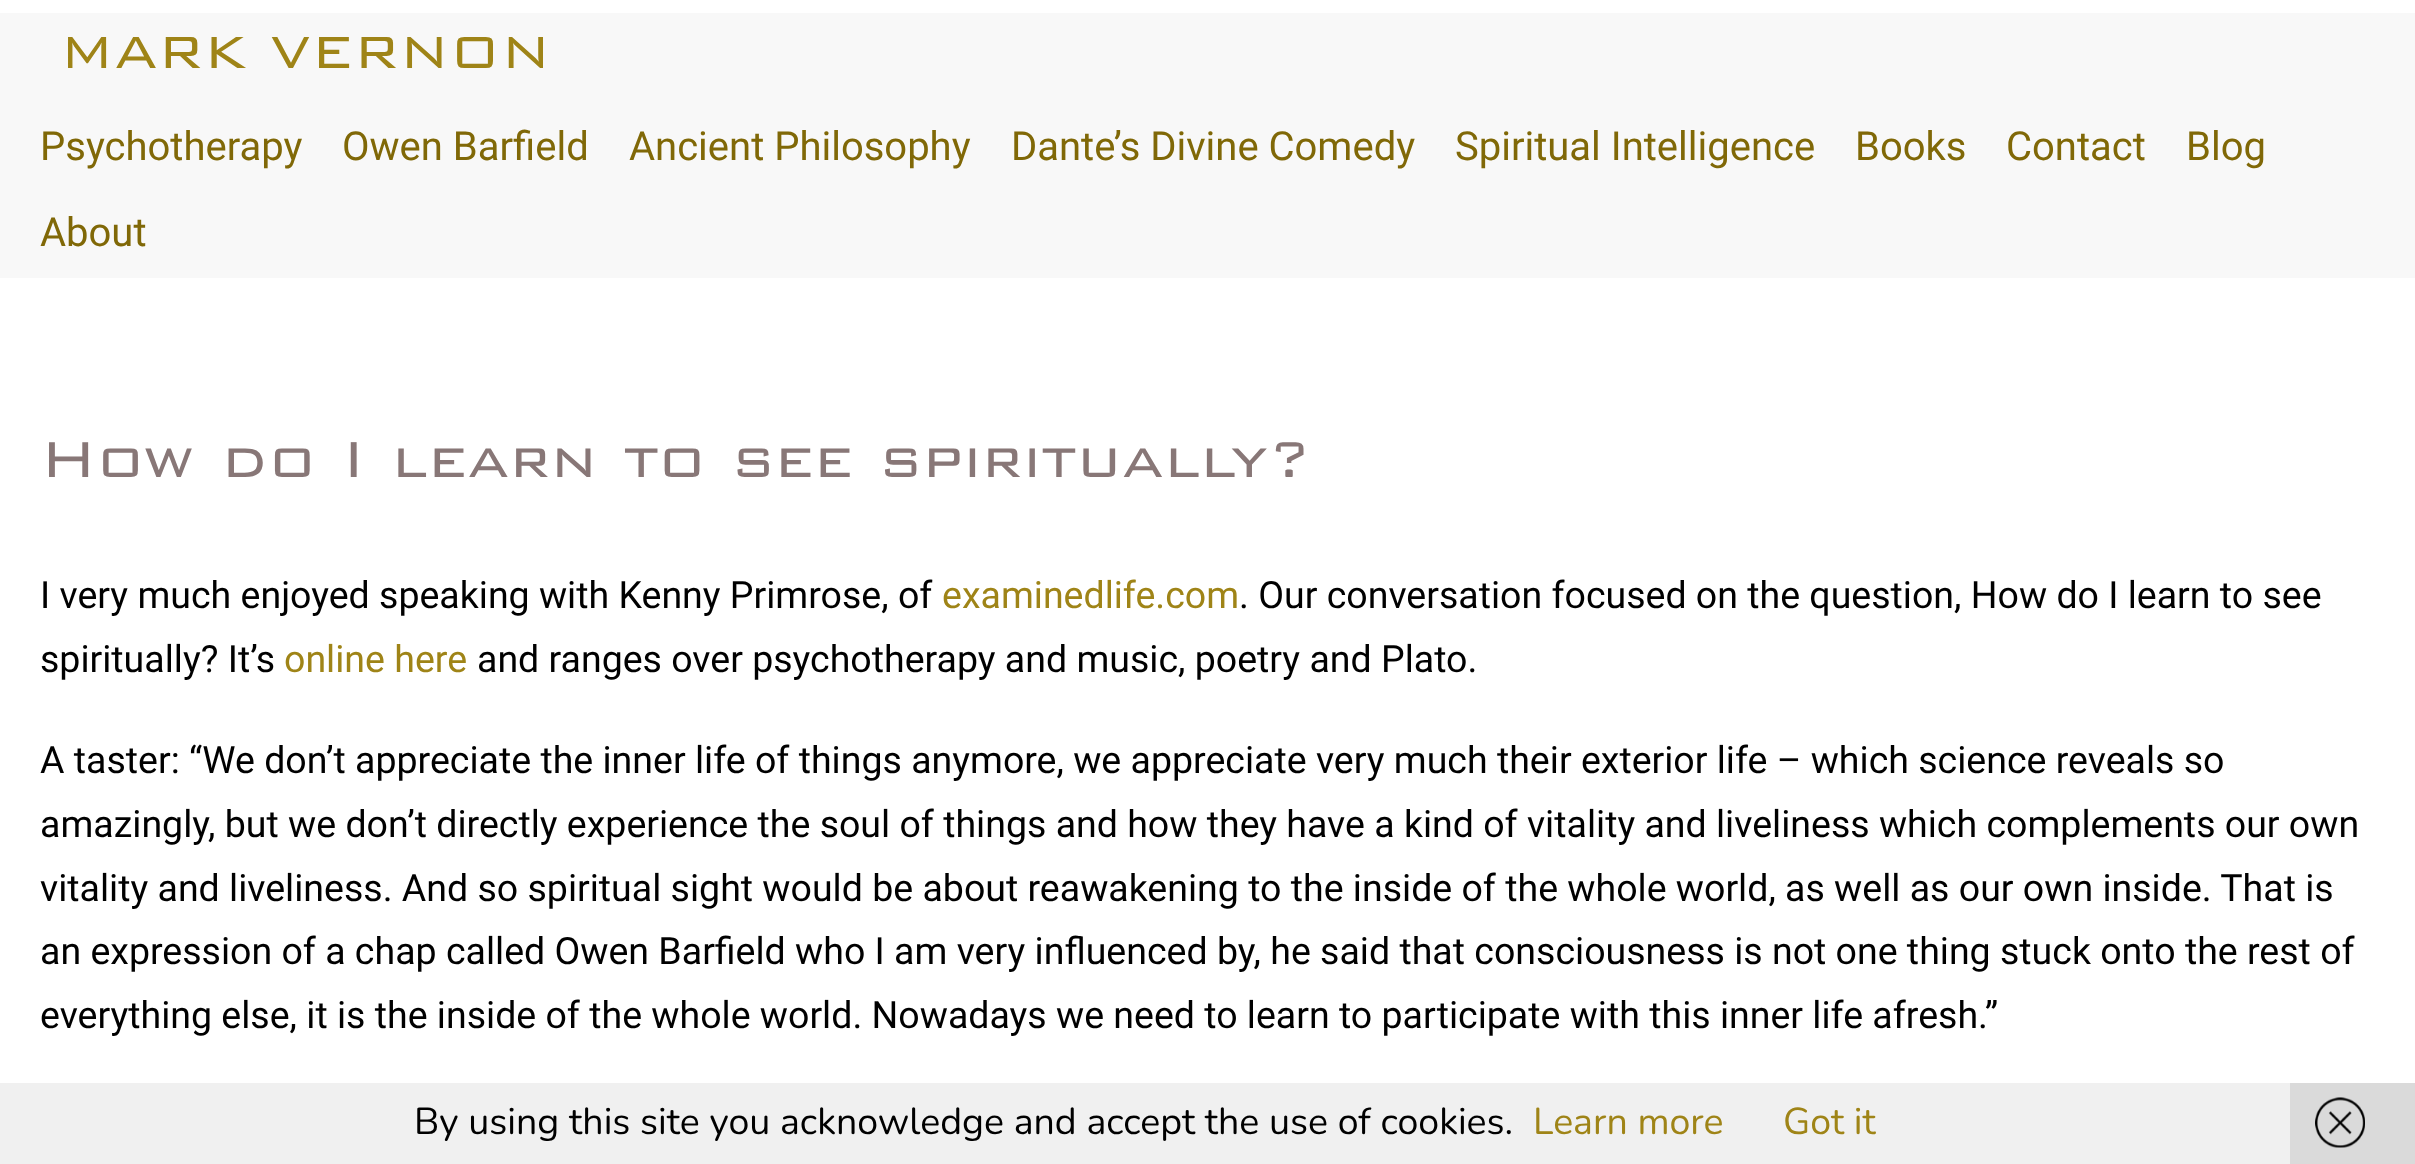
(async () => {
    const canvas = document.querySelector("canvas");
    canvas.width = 2415;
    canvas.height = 1164;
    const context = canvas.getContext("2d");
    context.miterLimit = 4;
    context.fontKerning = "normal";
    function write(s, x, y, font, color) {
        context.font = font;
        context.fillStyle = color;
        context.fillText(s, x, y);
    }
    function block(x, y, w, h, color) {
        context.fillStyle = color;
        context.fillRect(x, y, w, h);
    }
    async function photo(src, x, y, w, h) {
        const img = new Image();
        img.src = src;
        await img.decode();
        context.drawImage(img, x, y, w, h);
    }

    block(0, 0, 2415, 1164, "rgb(255, 255, 255)");
    block(0, 13, 2415, 265, "rgb(248, 248, 248)");
    write("MARK VERNON", 60, 68, "300 60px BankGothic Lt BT", "rgb(159, 132, 23)");
    write("Psychotherapy", 40, 160, "40px Roboto", "rgb(128, 104, 7)");
    write("Owen Barfield", 342, 160, "40px Roboto", "rgb(128, 104, 7)");
    write("Ancient Philosophy", 629, 160, "40px Roboto", "rgb(128, 104, 7)");
    write("Dante’s Divine Comedy", 1011, 160, "40px Roboto", "rgb(128, 104, 7)");
    write("Spiritual Intelligence", 1455, 160, "40px Roboto", "rgb(128, 104, 7)");
    write("Books", 1855, 160, "40px Roboto", "rgb(128, 104, 7)");
    write("Contact", 2006, 160, "40px Roboto", "rgb(128, 104, 7)");
    write("Blog", 2186, 160, "40px Roboto", "rgb(128, 104, 7)");
    write("About", 40, 246, "40px Roboto", "rgb(128, 104, 7)");
    context.wordSpacing = "1px";
    write("How do I learn to see spiritually?", 40, 477, "300 67.5px BankGothic Lt BT", "rgb(136, 119, 119)");
    context.wordSpacing = "0px";
    write("I very much enjoyed speaking with Kenny Primrose, of", 40, 608, "37.5px Roboto", "rgb(0, 0, 0)");
    write("examinedlife.com", 942, 608, "37.5px Roboto", "rgb(159, 132, 23)");
    write(". Our conversation focused on the question, How do I learn to see", 1239, 608, "37.5px Roboto", "rgb(0, 0, 0)");
    write("spiritually? It’s", 40, 672, "37.5px Roboto", "rgb(0, 0, 0)");
    write("online here", 284, 672, "37.5px Roboto", "rgb(159, 132, 23)");
    write("and ranges over psychotherapy and music, poetry and Plato.", 477, 672, "37.5px Roboto", "rgb(0, 0, 0)");
    write("A taster: “We don’t appreciate the inner life of things anymore, we appreciate very much their exterior life – which science reveals so", 40, 773, "37.5px Roboto", "rgb(0, 0, 0)");
    write("amazingly, but we don’t directly experience the soul of things and how they have a kind of vitality and liveliness which complements our own", 40, 837, "37.5px Roboto", "rgb(0, 0, 0)");
    write("vitality and liveliness. And so spiritual sight would be about reawakening to the inside of the whole world, as well as our own inside. That is", 40, 901, "37.5px Roboto", "rgb(0, 0, 0)");
    write("an expression of a chap called Owen Barfield who I am very influenced by, he said that consciousness is not one thing stuck onto the rest of", 40, 964, "37.5px Roboto", "rgb(0, 0, 0)");
    write("everything else, it is the inside of the whole world. Nowadays we need to learn to participate with this inner life afresh.”", 40, 1028, "37.5px Roboto", "rgb(0, 0, 0)");
    block(0, 1083, 2290, 81, "rgb(240, 240, 240)");
    write("By using this site you acknowledge and accept the use of cookies.", 414, 1134, "37.5px Nunito", "rgb(0, 0, 0)");
    write("Learn more", 1533, 1134, "37.5px Nunito", "rgb(159, 132, 23)");
    write("Got it", 1783, 1134, "37.5px Nunito", "rgb(159, 132, 23)");
    block(2290, 1083, 125, 81, "rgb(218, 218, 218)");
    await photo("media/1.png", 2315, 1097, 50, 51);
})();
